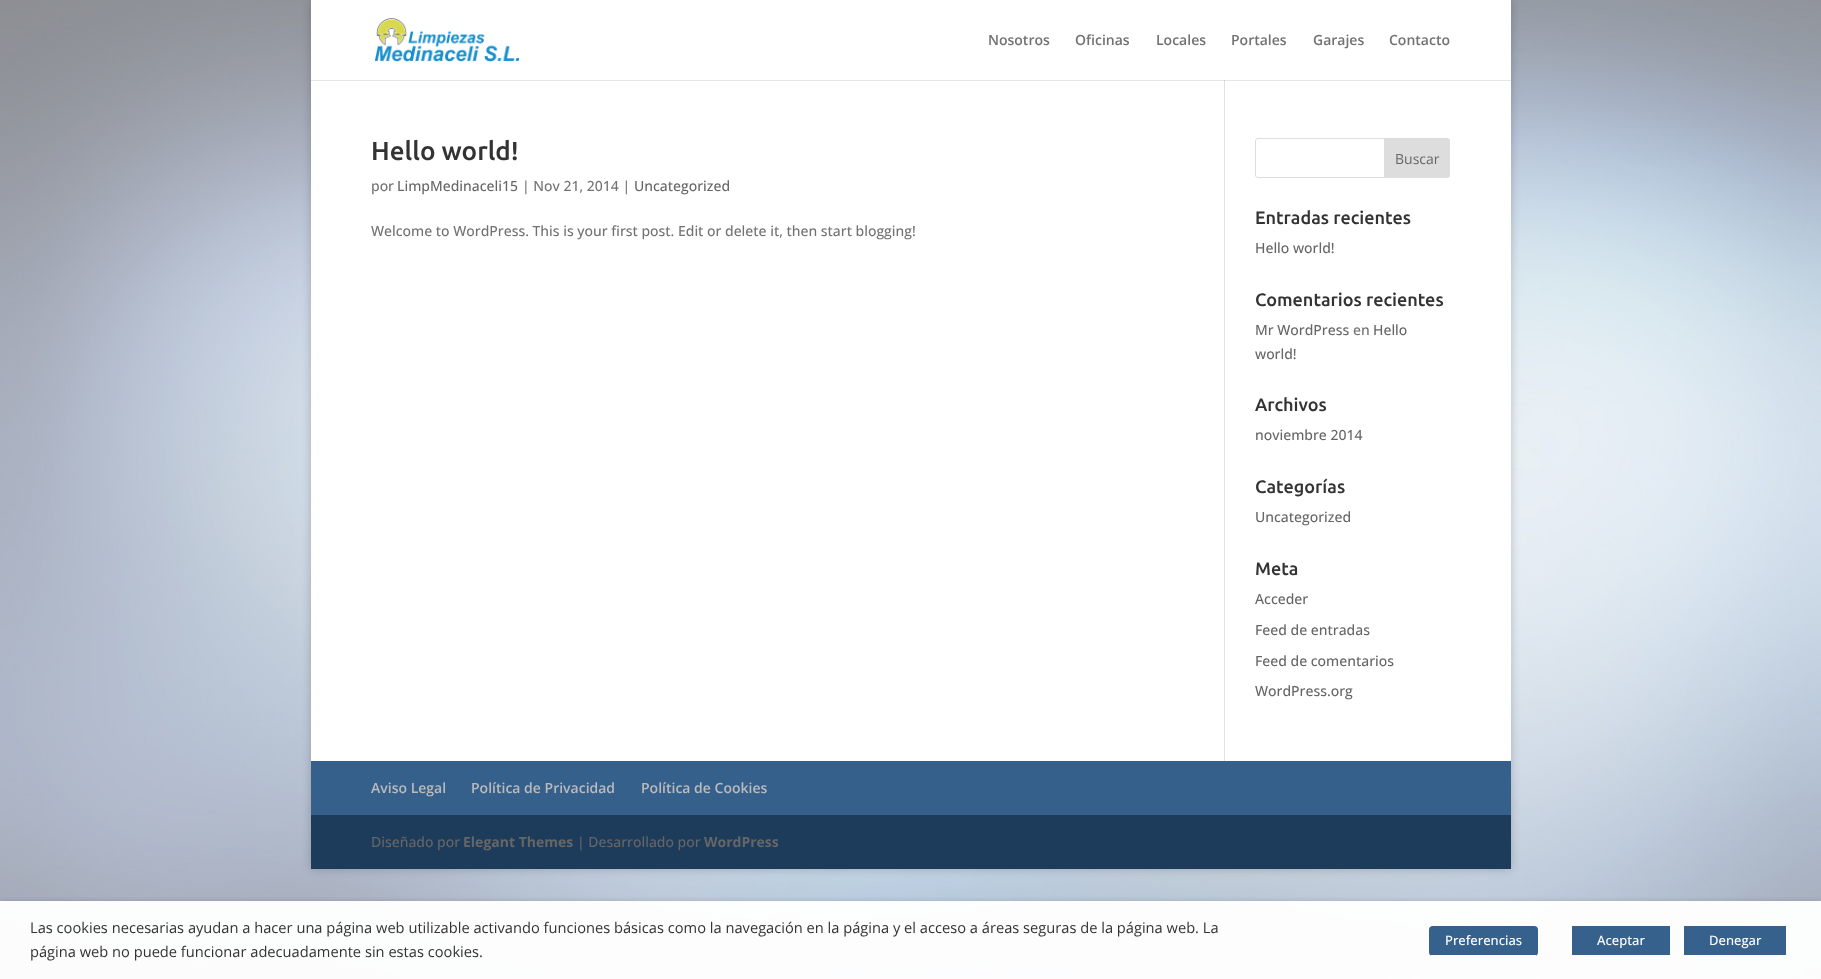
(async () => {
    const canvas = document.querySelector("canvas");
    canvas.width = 1821;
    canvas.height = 979;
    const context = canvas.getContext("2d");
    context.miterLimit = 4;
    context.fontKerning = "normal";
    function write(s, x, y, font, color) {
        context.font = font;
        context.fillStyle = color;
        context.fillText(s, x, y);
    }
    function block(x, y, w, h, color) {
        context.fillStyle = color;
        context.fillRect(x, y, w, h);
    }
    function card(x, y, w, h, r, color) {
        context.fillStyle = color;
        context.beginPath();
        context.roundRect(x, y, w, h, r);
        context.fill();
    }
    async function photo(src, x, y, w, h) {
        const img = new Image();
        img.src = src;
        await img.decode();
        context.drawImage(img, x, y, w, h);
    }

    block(0, 0, 1821, 979, "rgb(255, 255, 255)");
    await photo("media/1.png", 0, 0, 1821, 979);
    context.fillStyle = "rgba(0, 0, 0, 0.2)";
    context.filter = "blur(5px)";
    context.beginPath();
    context.rect(311, 0, 1200, 869);
    context.fill();
    context.filter = "none";
    block(311, 0, 1200, 761, "rgb(255, 255, 255)");
    block(1224, 80, 1, 681, "rgb(226, 226, 226)");
    block(311, 80, 1200, 1, "rgba(0, 0, 0, 0.1)");
    await photo("media/2.png", 374, 18, 146, 44);
    write("Nosotros", 988, 45, "600 14px Open Sans", "rgb(114, 114, 114)");
    write("Oficinas", 1075, 45, "600 14px Open Sans", "rgb(114, 114, 114)");
    write("Locales", 1156, 45, "600 14px Open Sans", "rgb(114, 114, 114)");
    write("Portales", 1231, 45, "600 14px Open Sans", "rgb(114, 114, 114)");
    write("Garajes", 1313, 45, "600 14px Open Sans", "rgb(114, 114, 114)");
    write("Contacto", 1389, 45, "600 14px Open Sans", "rgb(114, 114, 114)");
    write("Hello world!", 371, 160, "500 26px Ubuntu", "rgb(51, 51, 51)");
    write("por", 371, 191, "500 14px Open Sans", "rgb(114, 114, 114)");
    write("LimpMedinaceli15", 397, 191, "500 14px Open Sans", "rgb(102, 102, 102)");
    write("| Nov 21, 2014 |", 522, 191, "500 14px Open Sans", "rgb(114, 114, 114)");
    write("Uncategorized", 634, 191, "500 14px Open Sans", "rgb(102, 102, 102)");
    write("Welcome to WordPress. This is your first post. Edit or delete it, then start blogging!", 371, 236, "500 14px Open Sans", "rgb(114, 114, 114)");
    context.beginPath();
    context.roundRect(1255.5, 138.5, 194, 39, 2.5);
    context.strokeStyle = "rgb(221, 221, 221)";
    context.stroke();
    context.fillStyle = "rgb(221, 221, 221)";
    context.beginPath();
    context.roundRect(1384.5, 138.5, 65, 39, [0, 2.5, 2.5, 0]);
    context.fill();
    context.stroke();
    write("Buscar", 1395, 164, "14px Open Sans", "rgb(102, 102, 102)");
    write("Entradas recientes", 1255, 224, "500 18px Ubuntu", "rgb(51, 51, 51)");
    write("Hello world!", 1255, 253, "500 14px Open Sans", "rgb(102, 102, 102)");
    write("Comentarios recientes", 1255, 306, "500 18px Ubuntu", "rgb(51, 51, 51)");
    write("Mr WordPress", 1255, 335, "500 14px Open Sans", "rgb(102, 102, 102)");
    write("en", 1353, 335, "500 14px Open Sans", "rgb(114, 114, 114)");
    write("Hello", 1373, 335, "500 14px Open Sans", "rgb(102, 102, 102)");
    write("world!", 1255, 359, "500 14px Open Sans", "rgb(102, 102, 102)");
    write("Archivos", 1255, 411, "500 18px Ubuntu", "rgb(51, 51, 51)");
    write("noviembre 2014", 1255, 440, "500 14px Open Sans", "rgb(102, 102, 102)");
    write("Categorías", 1255, 493, "500 18px Ubuntu", "rgb(51, 51, 51)");
    write("Uncategorized", 1255, 522, "500 14px Open Sans", "rgb(102, 102, 102)");
    write("Meta", 1255, 575, "500 18px Ubuntu", "rgb(51, 51, 51)");
    write("Acceder", 1255, 604, "500 14px Open Sans", "rgb(102, 102, 102)");
    write("Feed de entradas", 1255, 635, "500 14px Open Sans", "rgb(102, 102, 102)");
    write("Feed de comentarios", 1255, 666, "500 14px Open Sans", "rgb(102, 102, 102)");
    write("WordPress.org", 1255, 696, "500 14px Open Sans", "rgb(102, 102, 102)");
    block(311, 761, 1200, 54, "rgb(54, 96, 140)");
    write("Aviso Legal", 371, 793, "600 14px Open Sans", "rgb(187, 187, 187)");
    write("Política de Privacidad", 471, 793, "600 14px Open Sans", "rgb(187, 187, 187)");
    write("Política de Cookies", 641, 793, "600 14px Open Sans", "rgb(187, 187, 187)");
    block(311, 815, 1200, 54, "rgb(29, 60, 91)");
    write("Diseñado por", 371, 847, "500 14px Open Sans", "rgb(102, 102, 102)");
    write("Elegant Themes", 463, 847, "bold 14px Open Sans", "rgb(102, 102, 102)");
    write("| Desarrollado por", 577, 847, "500 14px Open Sans", "rgb(102, 102, 102)");
    write("WordPress", 704, 847, "bold 14px Open Sans", "rgb(102, 102, 102)");
    context.save();
    context.beginPath();
    context.rect(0, 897, 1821, 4);
    context.clip();
    context.fillStyle = "rgba(0, 0, 0, 0.5)";
    context.filter = "blur(5px)";
    context.beginPath();
    context.rect(0, 906, 1821, 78);
    context.fill();
    context.filter = "none";
    context.restore();
    block(0, 901, 1821, 78, "rgba(255, 255, 255, 0.97)");
    write("Las cookies necesarias ayudan a hacer una página web utilizable activando funciones básicas como la navegación en la página y el acceso a áreas seguras de la página web. La", 30, 933, "14.67px Open Sans", "rgb(51, 51, 51)");
    write("página web no puede funcionar adecuadamente sin estas cookies.", 30, 957, "14.67px Open Sans", "rgb(51, 51, 51)");
    card(1429, 926, 109, 30, 4, "rgb(54, 97, 140)");
    block(1431, 955, 105, 1, "rgb(255, 255, 255)");
    write("Preferencias", 1445, 945, "500 13px Open Sans", "rgb(255, 255, 255)");
    block(1572, 926, 98, 29, "rgb(54, 97, 140)");
    write("Aceptar", 1597, 945, "500 13px Open Sans", "rgb(255, 255, 255)");
    block(1684, 926, 102, 29, "rgb(54, 97, 140)");
    write("Denegar", 1709, 945, "500 13px Open Sans", "rgb(255, 255, 255)");
})();
